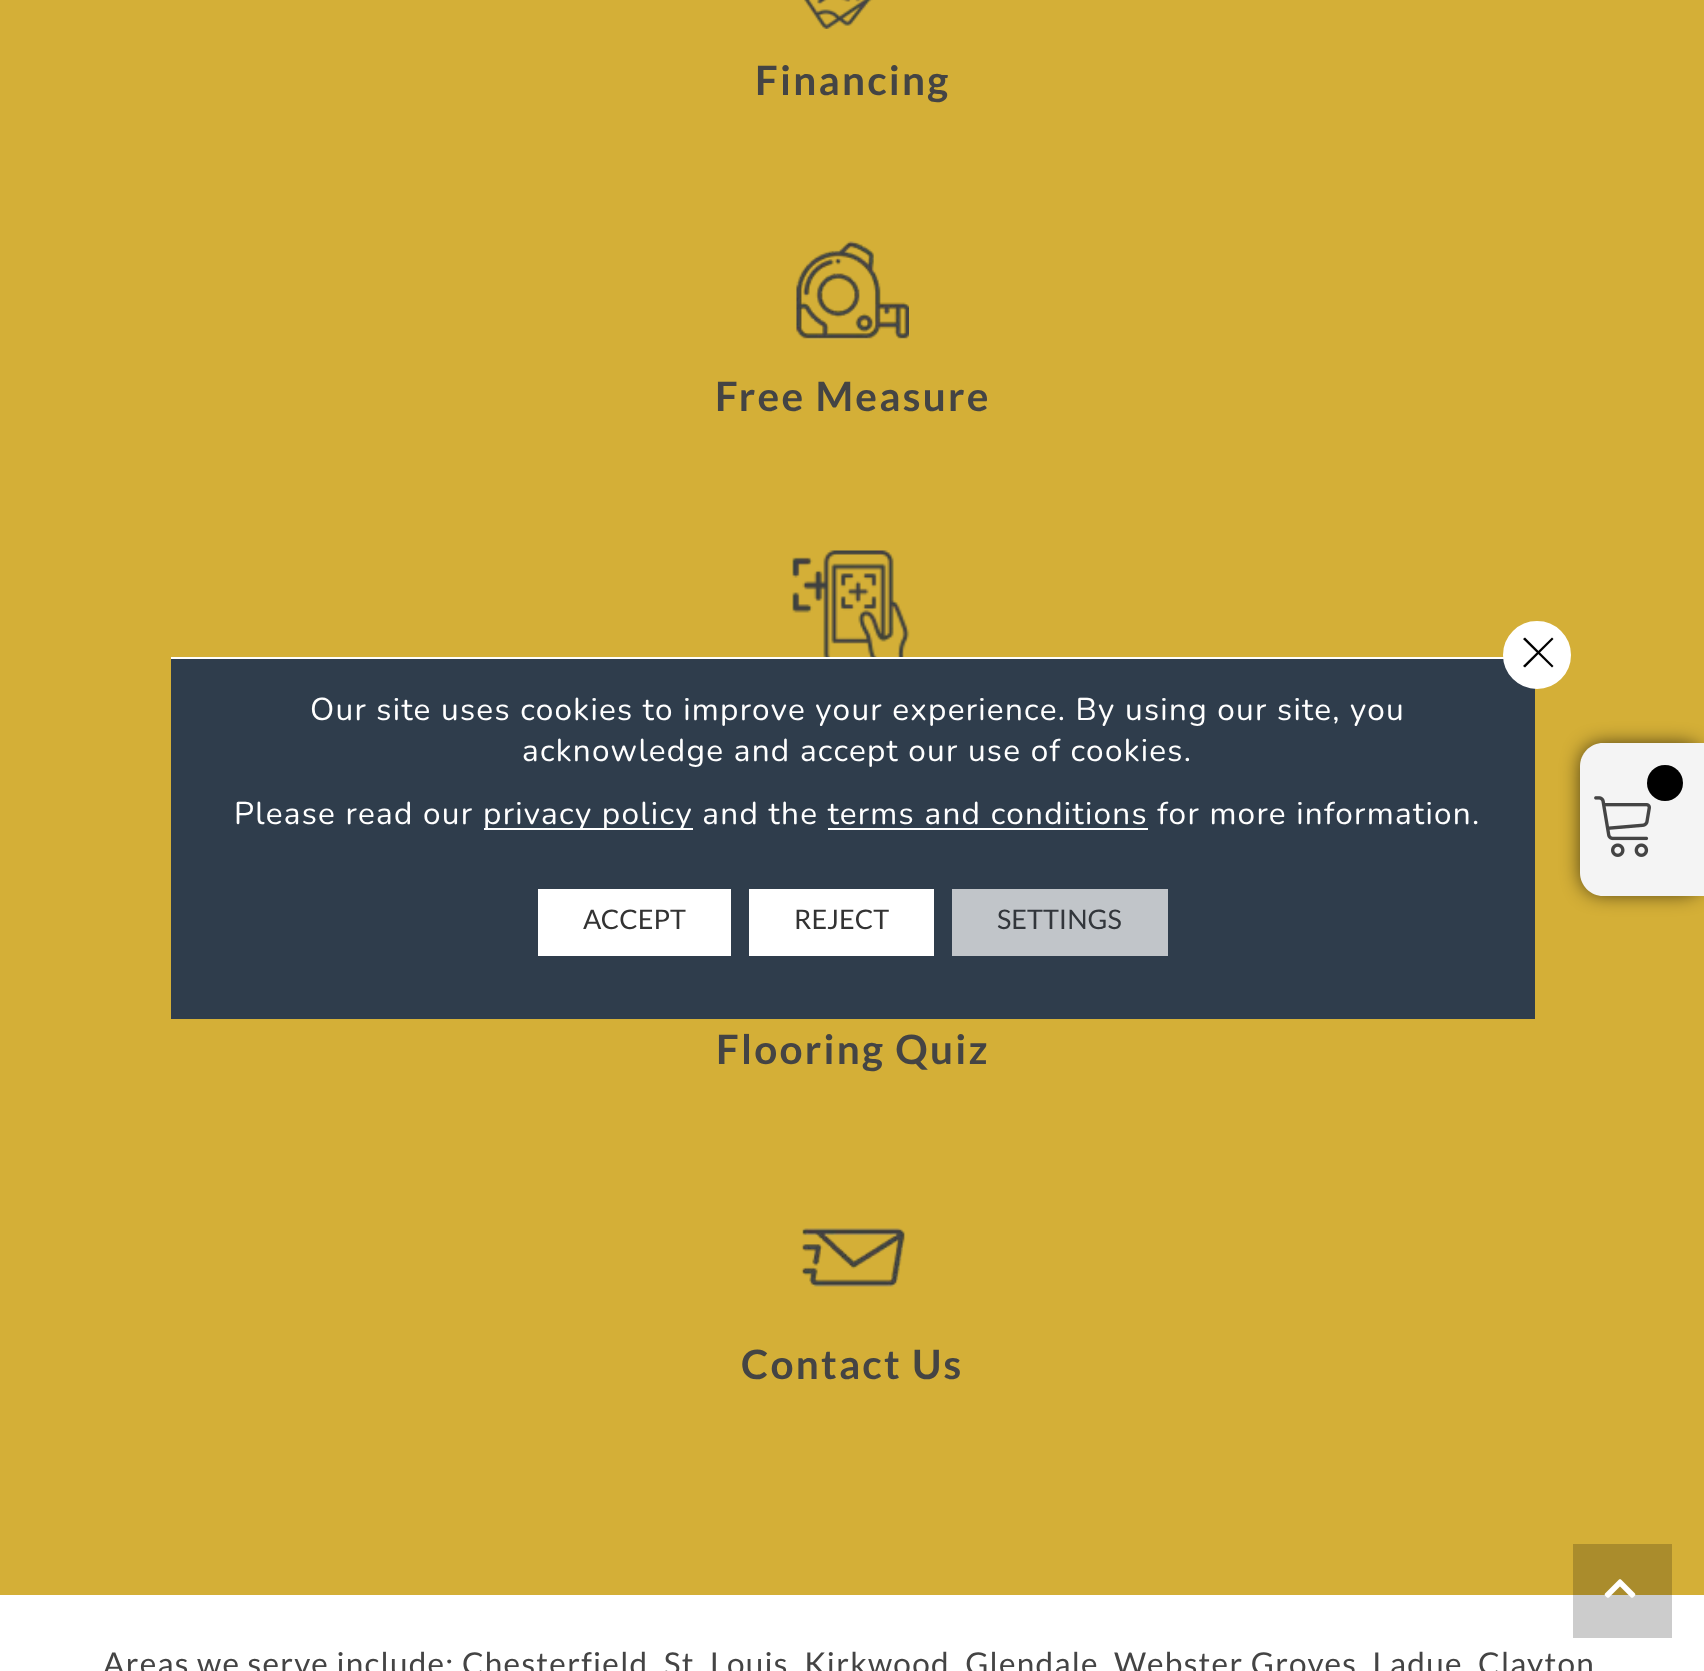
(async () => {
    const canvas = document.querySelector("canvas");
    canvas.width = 1704;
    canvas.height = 1671;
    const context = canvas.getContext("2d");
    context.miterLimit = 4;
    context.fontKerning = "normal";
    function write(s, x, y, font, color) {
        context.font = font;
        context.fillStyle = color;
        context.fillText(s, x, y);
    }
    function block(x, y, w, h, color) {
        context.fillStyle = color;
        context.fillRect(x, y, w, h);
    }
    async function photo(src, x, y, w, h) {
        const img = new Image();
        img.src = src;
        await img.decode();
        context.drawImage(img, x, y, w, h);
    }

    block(0, 0, 1704, 1671, "rgb(255, 255, 255)");
    block(1573, 1595, 99, 43, "rgb(204, 204, 204)");
    block(0, 0, 1704, 1595, "rgb(212, 175, 55)");
    block(1573, 1544, 99, 51, "rgb(170, 140, 44)");
    await photo("media/1.png", 804, 0, 69, 29);
    context.letterSpacing = "2.25px";
    write("Financing", 755, 95, "bold 40.5px Lato", "rgb(68, 68, 68)");
    await photo("media/2.png", 796, 241, 113, 99);
    write("Free Measure", 715, 411, "bold 40.5px Lato", "rgb(68, 68, 68)");
    await photo("media/3.png", 792, 550, 118, 107);
    write("Flooring Quiz", 716, 1064, "bold 40.5px Lato", "rgb(68, 68, 68)");
    await photo("media/4.png", 801, 1228, 105, 59);
    write("Contact Us", 741, 1379, "bold 40.5px Lato", "rgb(68, 68, 68)");
    context.fillStyle = "rgba(0, 0, 0, 0.75)";
    context.filter = "blur(10px)";
    context.beginPath();
    context.roundRect(1582, 745, 121, 148, 20);
    context.fill();
    context.filter = "none";
    context.fillStyle = "rgb(244, 244, 244)";
    context.beginPath();
    context.moveTo(1603, 743);
    context.lineTo(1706, 743);
    context.lineTo(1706, 896);
    context.lineTo(1603, 896);
    context.bezierCurveTo(1590.5, 896, 1580, 885.5, 1580, 873);
    context.lineTo(1580, 766);
    context.bezierCurveTo(1580, 753.5, 1590.5, 743, 1603, 743);
    context.closePath();
    context.fill();
    await photo("media/5.png", 1594, 796, 57, 61);
    context.fillStyle = "rgb(0, 0, 0)";
    context.beginPath();
    context.arc(1665, 783, 18, 0, Math.PI * 2);
    context.fill();
    context.letterSpacing = "1.28px";
    write("Areas we serve include: Chesterfield, St. Louis, Kirkwood, Glendale, Webster Groves, Ladue, Clayton", 103, 1675, "31.5px Lato", "rgb(68, 68, 68)");
    block(171, 659, 1364, 360, "rgb(47, 61, 76)");
    block(171, 657, 1333, 2, "rgb(255, 255, 255)");
    write("Our site uses cookies to improve your experience. By using our site, you", 310, 720, "31.5px Nunito", "rgb(255, 255, 255)");
    write("acknowledge and accept our use of cookies.", 522, 761, "31.5px Nunito", "rgb(255, 255, 255)");
    write("Please read our", 234, 824, "31.5px Nunito", "rgb(255, 255, 255)");
    block(484, 828, 209, 2, "rgb(255, 255, 255)");
    write("privacy policy and the terms and conditions for more information.", 483, 824, "31.5px Nunito", "rgb(255, 255, 255)");
    block(828, 828, 320, 2, "rgb(255, 255, 255)");
    context.beginPath();
    context.arc(1537, 655, 33, 0, Math.PI * 2);
    context.fill();
    context.strokeStyle = "rgb(255, 255, 255)";
    context.lineWidth = 2;
    context.stroke();
    context.fillStyle = "rgb(0, 0, 0)";
    context.beginPath();
    context.moveTo(1552, 637.5);
    context.lineTo(1553.5, 639);
    context.lineTo(1525, 667.5);
    context.lineTo(1523, 666);
    context.closePath();
    context.fill();
    context.beginPath();
    context.moveTo(1523, 639);
    context.lineTo(1525, 637.5);
    context.lineTo(1553.5, 666);
    context.lineTo(1552, 667.5);
    context.closePath();
    context.fill();
    block(538, 889, 193, 67, "rgb(255, 255, 255)");
    context.letterSpacing = "0px";
    write("ACCEPT", 583, 929, "27px Lato", "rgb(51, 51, 51)");
    block(749, 889, 185, 67, "rgb(255, 255, 255)");
    write("REJECT", 794, 929, "27px Lato", "rgb(51, 51, 51)");
    block(952, 889, 216, 67, "rgb(193, 197, 201)");
    write("SETTINGS", 997, 929, "27px Lato", "rgb(50, 54, 59)");
    await photo("media/6.png", 1604, 1579, 32, 19);
})();
